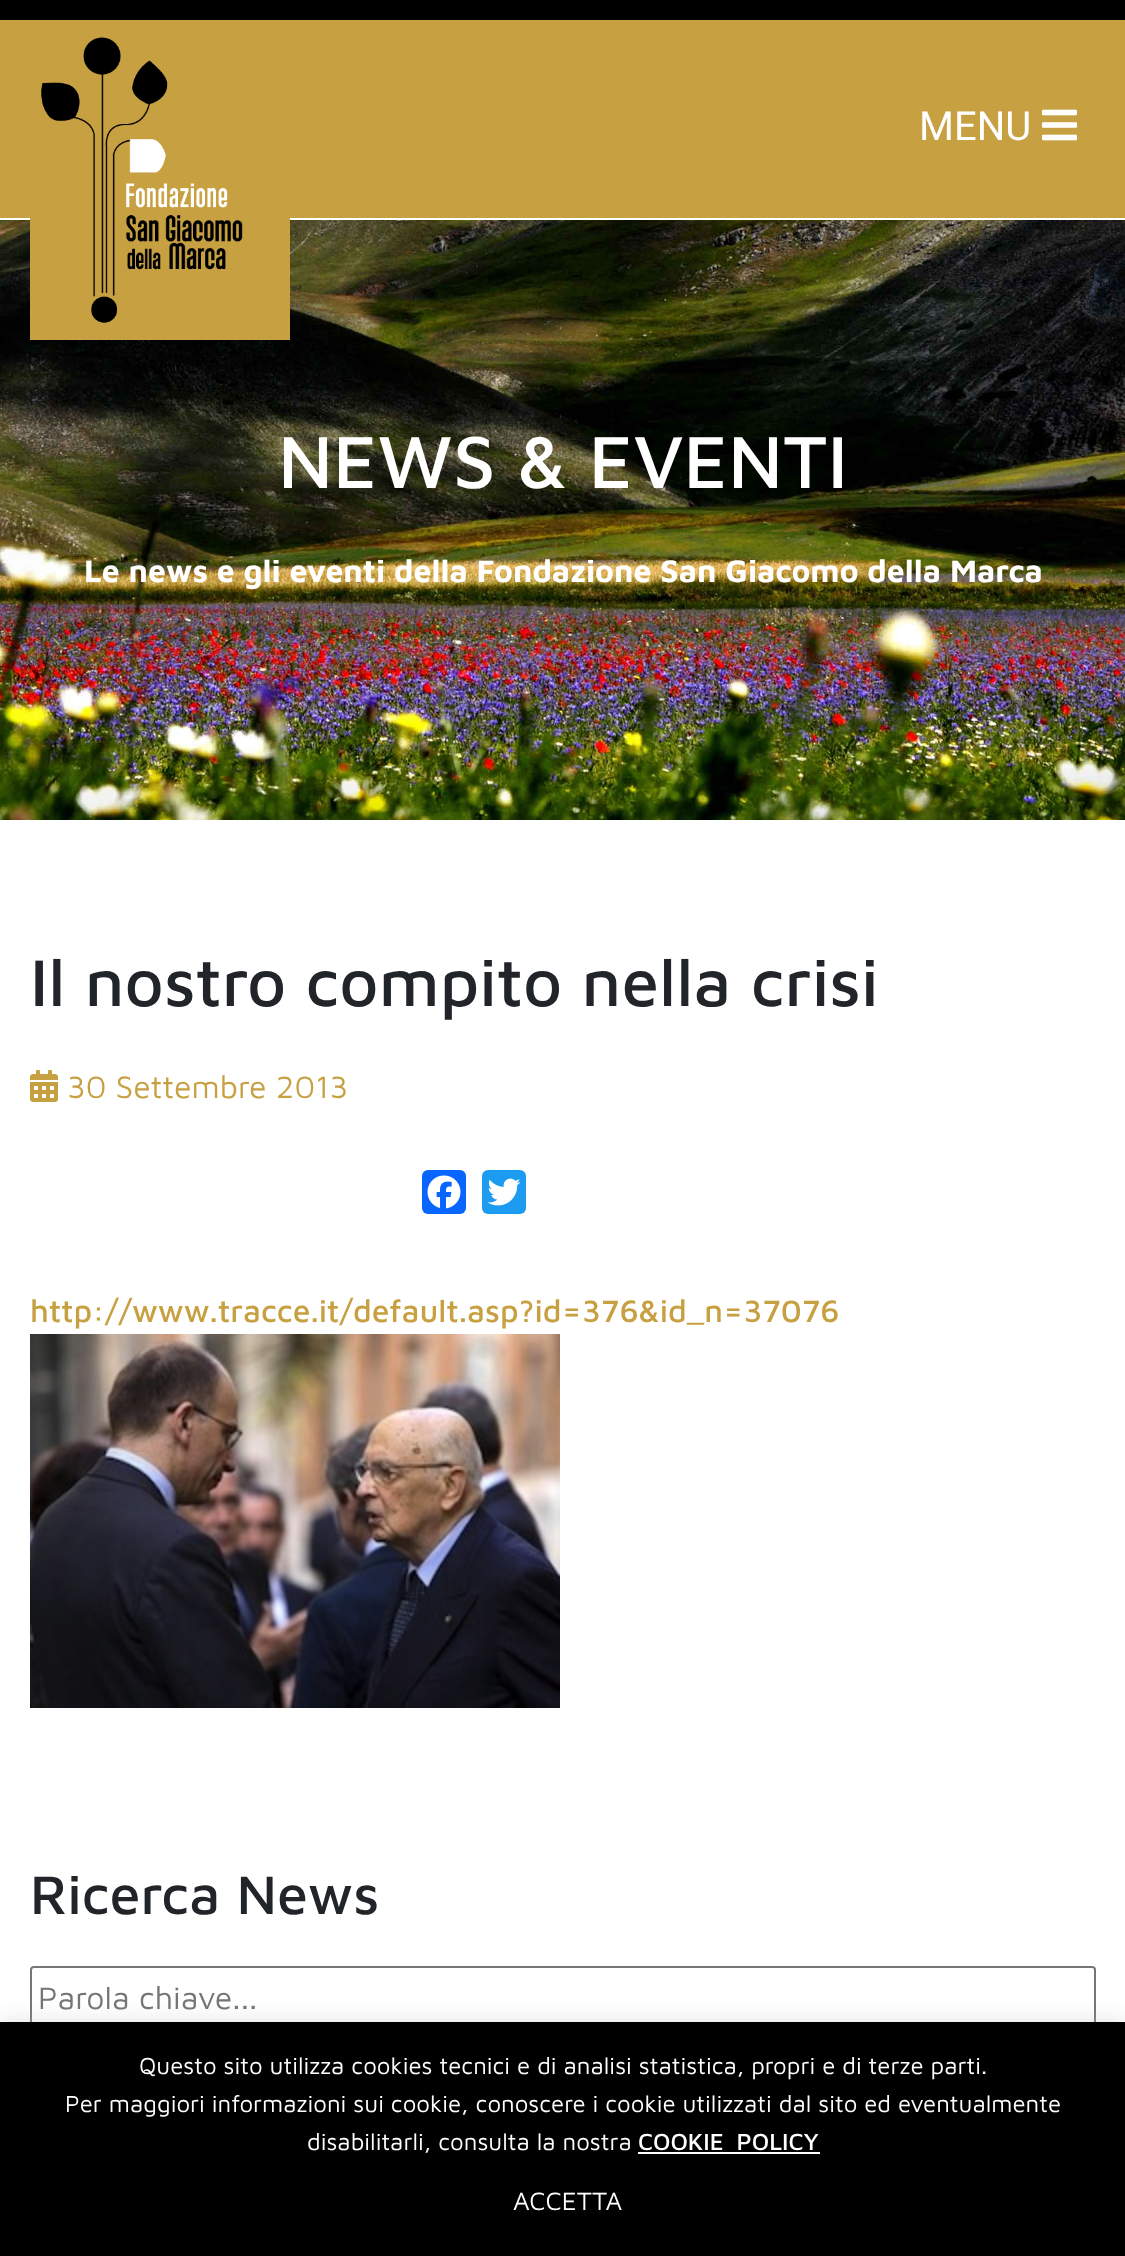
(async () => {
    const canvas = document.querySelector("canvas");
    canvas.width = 1125;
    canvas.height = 2256;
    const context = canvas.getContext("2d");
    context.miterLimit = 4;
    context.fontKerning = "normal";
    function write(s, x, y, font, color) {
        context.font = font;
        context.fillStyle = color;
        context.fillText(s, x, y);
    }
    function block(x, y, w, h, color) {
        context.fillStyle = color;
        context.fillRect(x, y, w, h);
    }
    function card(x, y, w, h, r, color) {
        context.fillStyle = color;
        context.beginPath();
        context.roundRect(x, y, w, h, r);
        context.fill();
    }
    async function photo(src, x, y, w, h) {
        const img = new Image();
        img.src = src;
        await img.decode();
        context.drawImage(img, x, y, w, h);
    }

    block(0, 0, 1125, 2256, "rgb(255, 255, 255)");
    block(0, 0, 1125, 20, "rgb(0, 0, 0)");
    block(0, 20, 1125, 198, "rgb(199, 160, 65)");
    await photo("media/3.png", 0, 220, 1125, 600);
    block(30, 218, 260, 122, "rgb(199, 160, 65)");
    await photo("media/1.png", 41, 37, 202, 286);
    write("MENU", 919, 140, "40px Roboto", "rgb(255, 255, 255)");
    await photo("media/2.png", 1042, 109, 35, 32);
    write("NEWS & EVENTI", 278, 488, "500 76px Maven Pro", "rgb(255, 255, 255)");
    write("Le news e gli eventi della Fondazione San Giacomo della Marca", 84, 582, "bold 32px Maven Pro", "rgb(255, 255, 255)");
    write("Il nostro compito nella crisi", 30, 1006, "500 68px Maven Pro", "rgb(33, 37, 41)");
    await photo("media/4.png", 30, 1070, 28, 32);
    write("30 Settembre 2013", 67, 1098, "32px Maven Pro", "rgb(199, 160, 65)");
    card(422, 1170, 44, 44, 6, "rgb(8, 102, 255)");
    await photo("media/5.png", 427, 1175, 34, 34);
    card(482, 1170, 44, 44, 6, "rgb(29, 155, 240)");
    await photo("media/6.png", 487, 1178, 34, 28);
    write("http://www.tracce.it/default.asp?id=376&id_n=37076", 30, 1322, "500 32px Maven Pro", "rgb(199, 160, 65)");
    await photo("media/7.png", 30, 1334, 530, 374);
    write("Ricerca News", 30, 1914, "500 56px Maven Pro", "rgb(33, 37, 41)");
    context.beginPath();
    context.roundRect(31, 1967, 1064, 58, 3);
    context.strokeStyle = "rgb(118, 118, 118)";
    context.lineWidth = 2;
    context.stroke();
    write("Parola chiave...", 38, 2009, "32px Maven Pro", "rgb(117, 117, 117)");
    context.fillStyle = "rgba(172, 171, 171, 0.3)";
    context.filter = "blur(10px)";
    context.beginPath();
    context.rect(0, 2020, 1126, 234);
    context.fill();
    context.filter = "none";
    block(0, 2022, 1125, 234, "rgb(0, 0, 0)");
    write("Questo sito utilizza cookies tecnici e di analisi statistica, propri e di terze parti.", 139, 2074, "24px Maven Pro", "rgb(255, 255, 255)");
    write("Per maggiori informazioni sui cookie, conoscere i cookie utilizzati dal sito ed eventualmente", 65, 2112, "24px Maven Pro", "rgb(255, 255, 255)");
    write("disabilitarli, consulta la nostra", 307, 2150, "24px Maven Pro", "rgb(255, 255, 255)");
    context.wordSpacing = "6px";
    write("COOKIE POLICY", 638, 2150, "500 24px Maven Pro", "rgb(255, 255, 255)");
    block(638, 2152, 182, 2, "rgb(255, 255, 255)");
    context.wordSpacing = "0px";
    write("ACCETTA", 513, 2210, "26px Maven Pro", "rgb(255, 255, 255)");
})();
